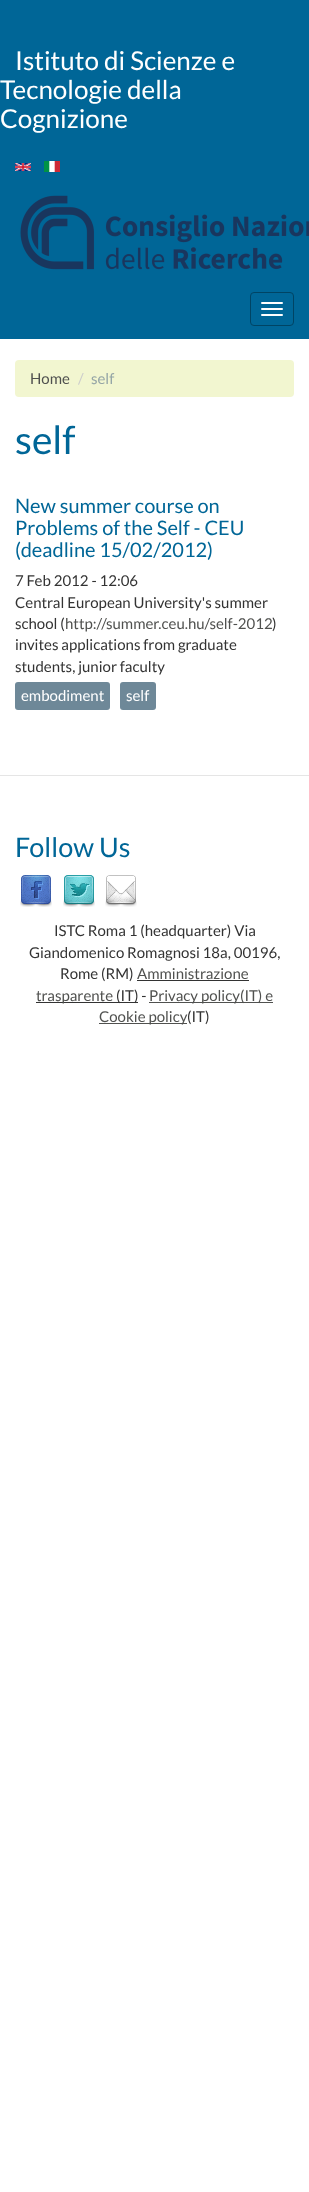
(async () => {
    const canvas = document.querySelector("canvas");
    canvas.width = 309;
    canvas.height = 2192;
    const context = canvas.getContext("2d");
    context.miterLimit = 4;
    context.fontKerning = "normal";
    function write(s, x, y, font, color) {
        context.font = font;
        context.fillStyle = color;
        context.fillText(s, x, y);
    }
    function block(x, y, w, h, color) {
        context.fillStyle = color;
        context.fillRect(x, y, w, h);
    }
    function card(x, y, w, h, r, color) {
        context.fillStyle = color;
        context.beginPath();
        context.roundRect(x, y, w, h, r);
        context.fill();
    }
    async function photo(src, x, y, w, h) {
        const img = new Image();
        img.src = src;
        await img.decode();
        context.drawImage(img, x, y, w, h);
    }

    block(0, 0, 309, 2192, "rgb(255, 255, 255)");
    block(0, 0, 309, 339, "rgb(0, 102, 151)");
    write("Istituto di Scienze e", 15, 70, "26px Lato", "rgb(255, 255, 255)");
    write("Tecnologie della", 0, 99, "26px Lato", "rgb(255, 255, 255)");
    write("Cognizione", 0, 128, "26px Lato", "rgb(255, 255, 255)");
    await photo("media/1.png", 15, 163, 16, 8);
    await photo("media/2.png", 44, 161, 16, 11);
    await photo("media/3.png", 20, 195, 289, 75);
    context.beginPath();
    context.roundRect(250.5, 292.5, 43, 33, 3.5);
    context.strokeStyle = "rgb(0, 68, 100)";
    context.stroke();
    card(261, 302, 22, 2, 1, "rgb(255, 255, 255)");
    card(261, 308, 22, 2, 1, "rgb(255, 255, 255)");
    card(261, 314, 22, 2, 1, "rgb(255, 255, 255)");
    card(15, 360, 279, 37, 4, "rgb(242, 246, 208)");
    write("Home", 30, 384, "15px Lato", "rgb(80, 81, 79)");
    write("/", 78, 384, "15px Lato", "rgb(204, 204, 204)");
    write("self", 91, 384, "15px Lato", "rgb(149, 165, 166)");
    write("self", 15, 454, "39px Lato", "rgb(0, 102, 151)");
    write("New summer course on", 15, 513, "20px Lato", "rgb(0, 102, 151)");
    write("Problems of the Self - CEU", 15, 535, "20px Lato", "rgb(0, 102, 151)");
    write("(deadline 15/02/2012)", 15, 557, "20px Lato", "rgb(0, 102, 151)");
    write("7 Feb 2012 - 12:06", 15, 586, "15px Lato", "rgb(51, 51, 51)");
    write("Central European University's summer", 15, 608, "15px Lato", "rgb(51, 51, 51)");
    write("school (", 15, 629, "15px Lato", "rgb(51, 51, 51)");
    write("http://summer.ceu.hu/self-2012", 65, 629, "15px Lato", "rgb(80, 81, 79)");
    write(")", 272, 629, "15px Lato", "rgb(51, 51, 51)");
    write("invites applications from graduate", 15, 650, "15px Lato", "rgb(51, 51, 51)");
    write("students, junior faculty", 15, 672, "15px Lato", "rgb(51, 51, 51)");
    card(15, 682, 95, 28, 3, "rgb(110, 136, 152)");
    write("embodiment", 21, 701, "15px Lato", "rgb(255, 255, 255)");
    card(120, 682, 36, 28, 3, "rgb(110, 136, 152)");
    write("self", 126, 701, "15px Lato", "rgb(255, 255, 255)");
    block(0, 775, 309, 1, "rgb(229, 229, 229)");
    write("Follow Us", 15, 857, "27px Lato", "rgb(0, 102, 151)");
    await photo("media/4.png", 20, 875, 32, 32);
    await photo("media/5.png", 63, 875, 32, 32);
    await photo("media/6.png", 105, 875, 32, 32);
    write("ISTC Roma 1 (headquarter) Via", 54, 936, "15px Lato", "rgb(51, 51, 51)");
    write("Giandomenico Romagnosi 18a, 00196,", 29, 958, "15px Lato", "rgb(51, 51, 51)");
    write("Rome (RM)", 60, 979, "15px Lato", "rgb(51, 51, 51)");
    write("Amministrazione", 137, 979, "15px Lato", "rgb(80, 81, 79)");
    block(137, 980, 112, 1, "rgb(51, 51, 51)");
    block(36, 1002, 102, 1, "rgb(51, 51, 51)");
    write("trasparente", 36, 1001, "15px Lato", "rgb(80, 81, 79)");
    write("(IT) -", 116, 1001, "15px Lato", "rgb(51, 51, 51)");
    block(149, 1002, 124, 1, "rgb(80, 81, 79)");
    write("Privacy policy(IT) e", 149, 1001, "15px Lato", "rgb(80, 81, 79)");
    block(99, 1023, 88, 1, "rgb(80, 81, 79)");
    write("Cookie policy", 99, 1022, "15px Lato", "rgb(80, 81, 79)");
    write("(IT)", 187, 1022, "15px Lato", "rgb(51, 51, 51)");
})();
